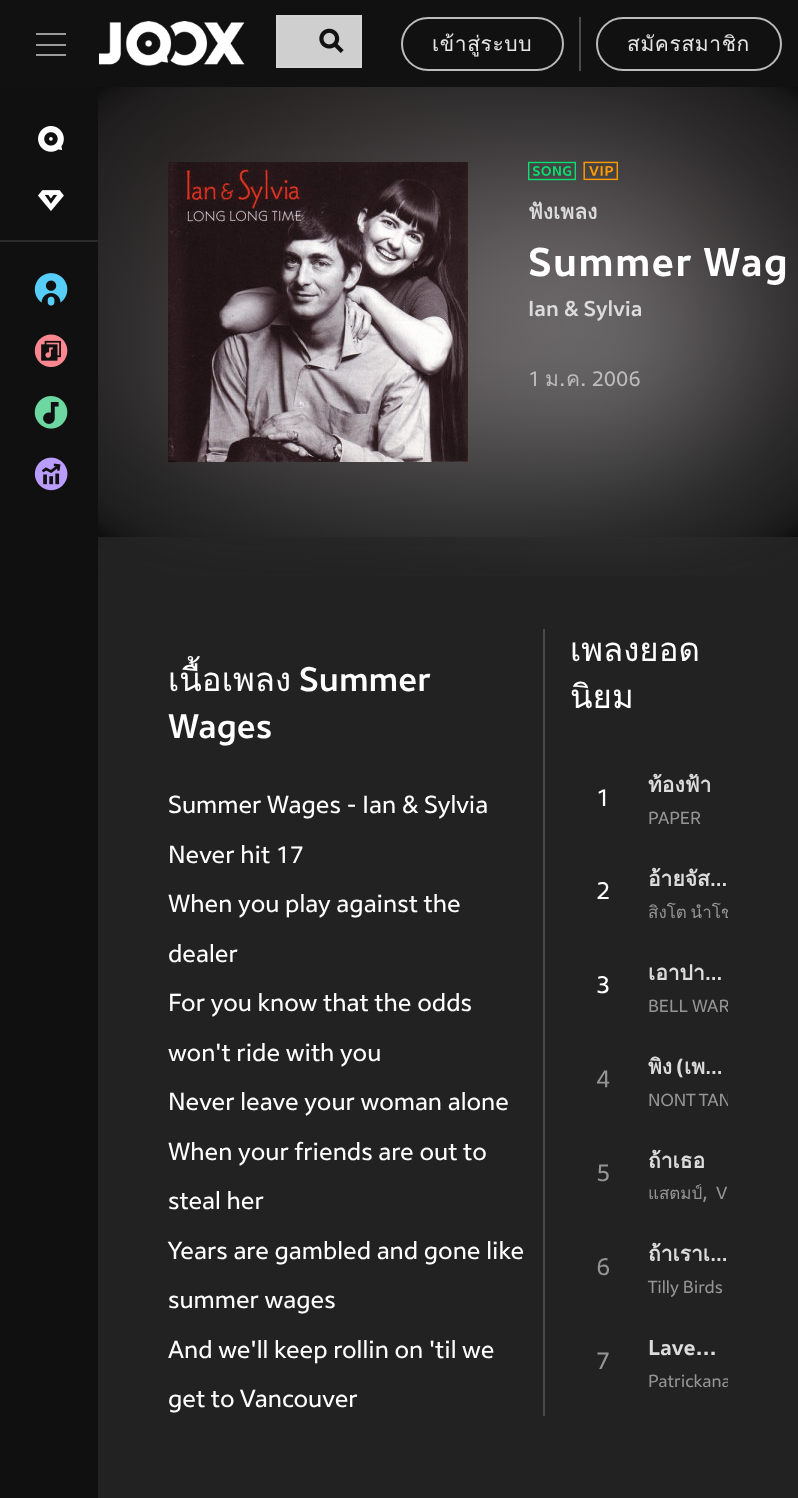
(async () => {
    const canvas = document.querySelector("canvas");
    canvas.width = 798;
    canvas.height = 1498;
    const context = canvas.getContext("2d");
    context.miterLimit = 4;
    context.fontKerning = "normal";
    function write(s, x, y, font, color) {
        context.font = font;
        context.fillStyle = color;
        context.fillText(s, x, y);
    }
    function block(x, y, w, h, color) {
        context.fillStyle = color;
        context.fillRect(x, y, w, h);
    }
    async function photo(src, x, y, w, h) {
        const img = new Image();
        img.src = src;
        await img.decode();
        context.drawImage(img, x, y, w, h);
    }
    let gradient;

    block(0, 0, 798, 1498, "rgb(34, 34, 34)");
    block(0, 0, 798, 87, "rgb(17, 17, 17)");
    block(36, 33, 30, 2, "rgb(155, 155, 155)");
    block(36, 44, 30, 2, "rgb(155, 155, 155)");
    block(36, 54, 30, 2, "rgb(155, 155, 155)");
    await photo("media/1.png", 99, 21, 146, 45);
    context.fillStyle = "rgb(207, 207, 207)";
    context.beginPath();
    context.rect(277, 16, 84, 51);
    context.fill();
    context.strokeStyle = "rgb(212, 212, 212)";
    context.lineWidth = 2;
    context.stroke();
    await photo("media/2.png", 319, 28, 25, 25);
    context.beginPath();
    context.roundRect(402, 18, 161, 52, 26);
    context.strokeStyle = "rgb(188, 188, 188)";
    context.stroke();
    context.letterSpacing = "0.6px";
    write("เข้าสู่ระบบ", 432, 51, "21px Loma", "rgb(229, 229, 229)");
    block(579, 17, 2, 54, "rgb(74, 74, 74)");
    context.beginPath();
    context.roundRect(597, 18, 184, 52, 26);
    context.stroke();
    write("สมัครสมาชิก", 627, 51, "21px Loma", "rgb(229, 229, 229)");
    block(0, 87, 98, 1411, "rgb(16, 16, 16)");
    block(0, 240, 98, 2, "rgb(43, 43, 43)");
    await photo("media/3.png", 38, 126, 26, 26);
    await photo("media/4.png", 38, 190, 26, 21);
    await photo("media/5.png", 34, 273, 34, 33);
    await photo("media/6.png", 34, 334, 34, 33);
    await photo("media/7.png", 34, 396, 34, 33);
    await photo("media/8.png", 34, 457, 34, 34);
    await photo("media/9.png", 98, 87, 700, 489);
    gradient = context.createRadialGradient(448, 485.66, 0, 448, 485.66, 495);
    gradient.addColorStop(0, "rgba(153, 153, 153, 0.11)");
    gradient.addColorStop(0.01, "rgba(153, 153, 153, 0.11)");
    gradient.addColorStop(0.76, "rgba(43, 43, 43, 0.48)");
    gradient.addColorStop(0.91, "rgba(28, 28, 28, 0.56)");
    gradient.addColorStop(0.96, "rgba(17, 17, 17, 0.58)");
    gradient.addColorStop(1, "rgba(0, 0, 0, 0.6)");
    context.fillStyle = gradient;
    context.beginPath();
    context.rect(98, 87, 700, 450);
    context.save();
    context.clip();
    context.scale(1, 318 / 495);
    context.fillRect(0, 0, 798, 2332);
    context.restore();
    await photo("media/10.png", 168, 162, 300, 300);
    await photo("media/11.png", 528, 161, 48, 20);
    await photo("media/12.png", 583, 161, 35, 20);
    context.save();
    context.beginPath();
    context.rect(528, 200, 270, 87);
    context.clip();
    context.letterSpacing = "0px";
    write("ฟังเพลง", 528, 219, "bold 21px Loma", "rgb(220, 220, 220)");
    context.restore();
    context.letterSpacing = "1.25px";
    write("Summer Wag", 528, 276, "bold 39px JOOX", "rgb(255, 255, 255)");
    context.letterSpacing = "0px";
    write("Ian & Sylvia", 528, 316, "500 21px JOOX", "rgb(220, 220, 220)");
    write("1", 528, 386, "21px JOOX", "rgb(188, 188, 188)");
    write("ม", 545, 386, "21px Loma", "rgb(188, 188, 188)");
    write(".", 559, 386, "21px JOOX", "rgb(188, 188, 188)");
    write("ค", 566, 386, "21px Loma", "rgb(188, 188, 188)");
    write(". 2006", 580, 386, "21px JOOX", "rgb(188, 188, 188)");
    block(543, 629, 2, 787, "rgb(74, 74, 74)");
    write("เนื้อเพลง", 168, 691, "33px Loma", "rgb(255, 255, 255)");
    write("Summer", 299, 691, "500 33px JOOX", "rgb(255, 255, 255)");
    write("Wages", 168, 738, "500 33px JOOX", "rgb(255, 255, 255)");
    write("Summer Wages - Ian & Sylvia", 168, 813, "24px JOOX", "rgb(255, 255, 255)");
    write("Never hit 17", 168, 863, "24px JOOX", "rgb(255, 255, 255)");
    write("When you play against the", 168, 912, "24px JOOX", "rgb(255, 255, 255)");
    write("dealer", 168, 962, "24px JOOX", "rgb(255, 255, 255)");
    write("For you know that the odds", 168, 1011, "24px JOOX", "rgb(255, 255, 255)");
    write("won't ride with you", 168, 1061, "24px JOOX", "rgb(255, 255, 255)");
    write("Never leave your woman alone", 168, 1110, "24px JOOX", "rgb(255, 255, 255)");
    write("When your friends are out to", 168, 1160, "24px JOOX", "rgb(255, 255, 255)");
    write("steal her", 168, 1209, "24px JOOX", "rgb(255, 255, 255)");
    write("Years are gambled and gone like", 168, 1259, "24px JOOX", "rgb(255, 255, 255)");
    write("summer wages", 168, 1308, "24px JOOX", "rgb(255, 255, 255)");
    write("And we'll keep rollin on 'til we", 168, 1358, "24px JOOX", "rgb(255, 255, 255)");
    write("get to Vancouver", 168, 1407, "24px JOOX", "rgb(255, 255, 255)");
    write("เพลงยอด", 570, 661, "33px Loma", "rgb(255, 255, 255)");
    write("นิยม", 570, 708, "33px Loma", "rgb(255, 255, 255)");
    write("1", 596, 806, "24px JOOX", "rgb(255, 255, 255)");
    context.save();
    context.beginPath();
    context.rect(648, 768, 63, 30);
    context.clip();
    write("ท้องฟ้า", 648, 792, "bold 21px Loma", "rgb(220, 220, 220)");
    context.restore();
    write("PAPER", 648, 824, "17px JOOX", "rgb(149, 149, 149)");
    write("2", 596, 899, "24px JOOX", "rgb(255, 255, 255)");
    context.save();
    context.beginPath();
    context.rect(648, 863, 80, 30);
    context.clip();
    write("อ้ายจัส…", 648, 886, "bold 21px Loma", "rgb(220, 220, 220)");
    context.restore();
    context.save();
    context.beginPath();
    context.rect(648, 902, 80, 24);
    context.clip();
    context.wordSpacing = "-2px";
    write("สิงโต นำโช", 648, 918, "17px Loma", "rgb(149, 149, 149)");
    context.restore();
    write("3", 596, 993, "24px JOOX", "rgb(255, 255, 255)");
    write("เอาปา…", 648, 980, "bold 21px Loma", "rgb(220, 220, 220)");
    context.save();
    context.beginPath();
    context.rect(648, 996, 80, 24);
    context.clip();
    write("BELL WAR", 648, 1012, "17px JOOX", "rgb(149, 149, 149)");
    context.restore();
    write("4", 596, 1087, "24px JOOX", "rgb(149, 149, 149)");
    context.save();
    context.beginPath();
    context.rect(648, 1050, 80, 30);
    context.clip();
    write("พิง", 648, 1074, "bold 21px Loma", "rgb(220, 220, 220)");
    context.restore();
    write("(", 676, 1074, "bold 21px JOOX", "rgb(220, 220, 220)");
    context.wordSpacing = "-1px";
    write("เพ…", 684, 1074, "bold 21px Loma", "rgb(220, 220, 220)");
    context.save();
    context.beginPath();
    context.rect(648, 1089, 80, 24);
    context.clip();
    context.wordSpacing = "0px";
    write("NONT TAN", 648, 1106, "17px JOOX", "rgb(149, 149, 149)");
    context.restore();
    context.wordSpacing = "0px";
    write("5", 596, 1181, "24px JOOX", "rgb(149, 149, 149)");
    context.save();
    context.beginPath();
    context.rect(648, 1143, 80, 30);
    context.clip();
    write("ถ้าเธอ", 648, 1168, "bold 21px Loma", "rgb(220, 220, 220)");
    context.restore();
    write("แสตมป์", 648, 1199, "17px Loma", "rgb(149, 149, 149)");
    write(",", 702, 1199, "19px JOOX", "rgb(149, 149, 149)");
    write("V", 716, 1199, "17px JOOX", "rgb(149, 149, 149)");
    write("6", 596, 1275, "24px JOOX", "rgb(149, 149, 149)");
    context.save();
    context.beginPath();
    context.rect(648, 1238, 80, 30);
    context.clip();
    write("ถ้าเราเ…", 648, 1261, "bold 21px Loma", "rgb(220, 220, 220)");
    context.restore();
    write("Tilly Birds", 648, 1293, "17px JOOX", "rgb(149, 149, 149)");
    write("7", 596, 1369, "24px JOOX", "rgb(149, 149, 149)");
    write("Lave…", 648, 1355, "bold 21px JOOX", "rgb(220, 220, 220)");
    context.save();
    context.beginPath();
    context.rect(648, 1371, 80, 24);
    context.clip();
    write("Patrickana", 648, 1387, "17px JOOX", "rgb(149, 149, 149)");
    context.restore();
})();
